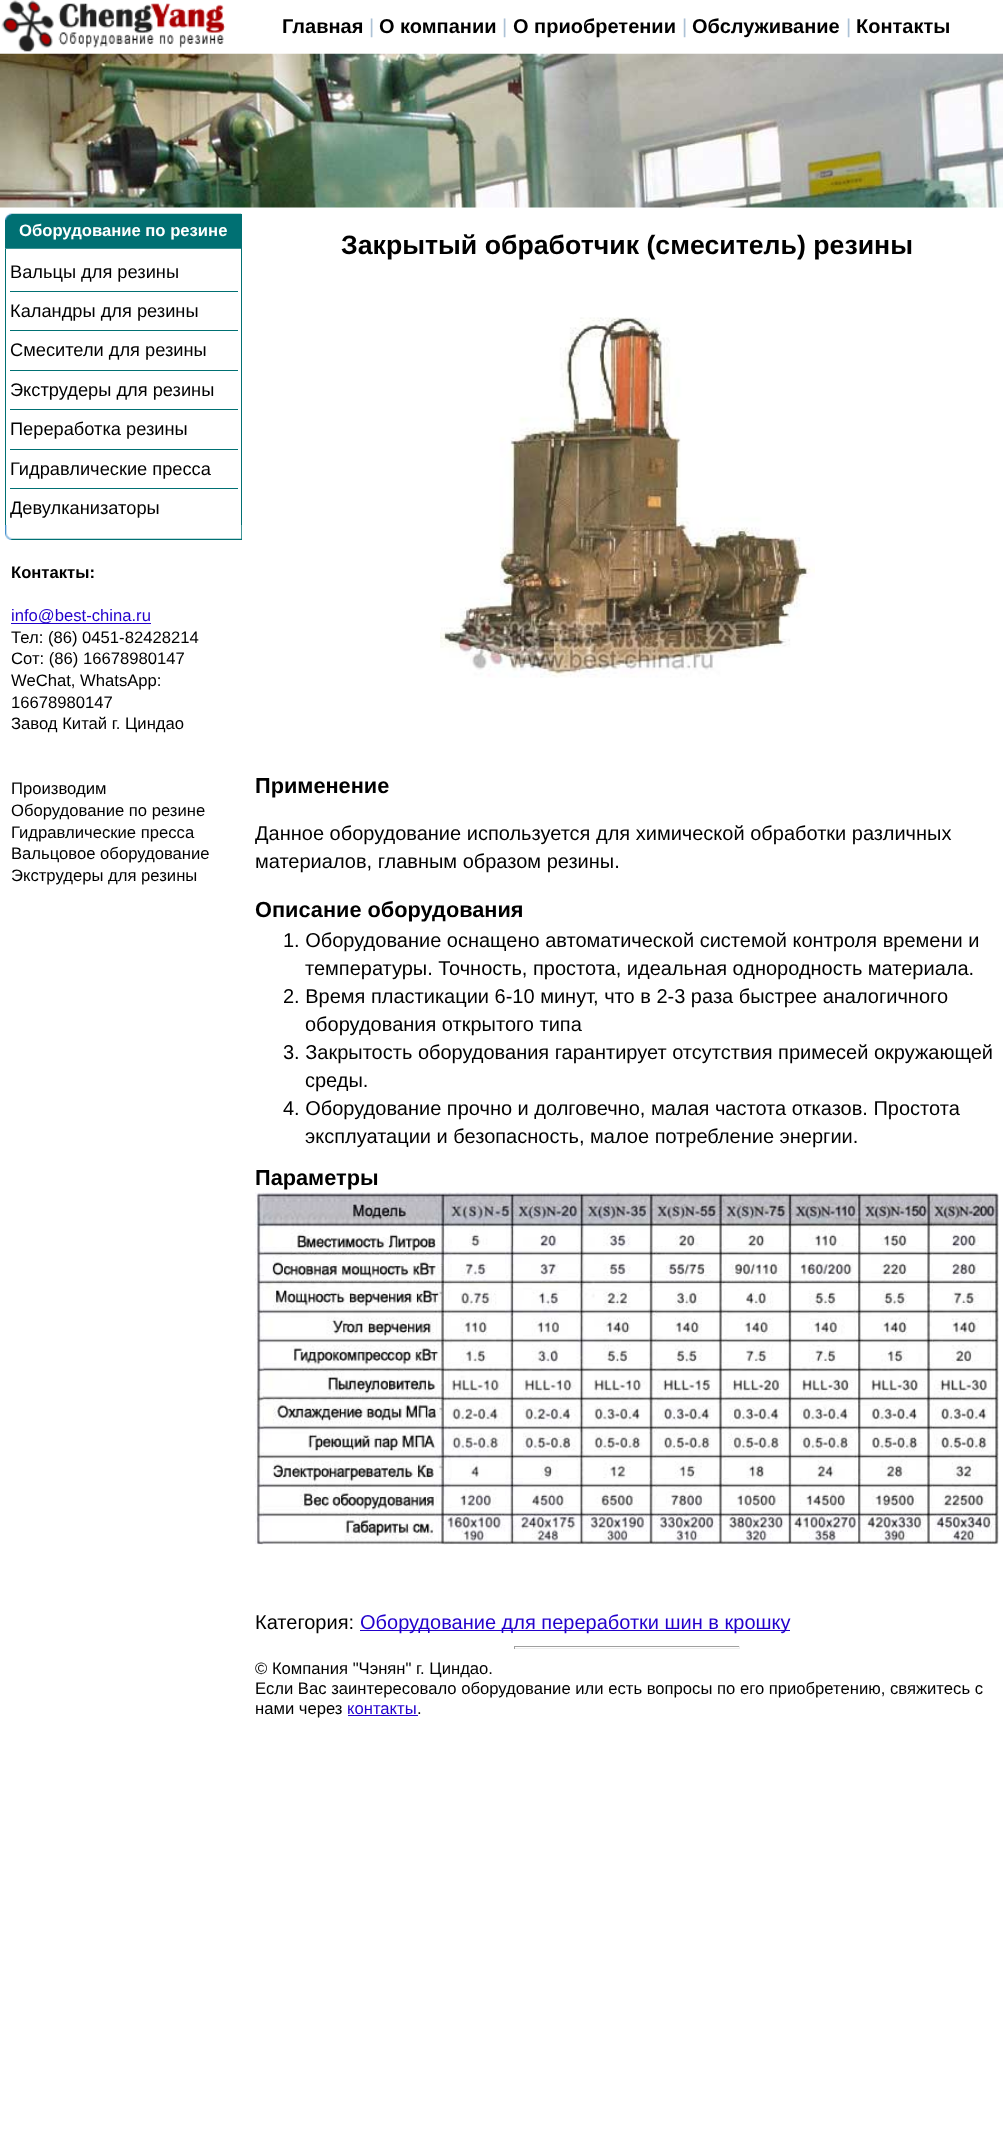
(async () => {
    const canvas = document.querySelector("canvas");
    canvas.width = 1003;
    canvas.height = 2148;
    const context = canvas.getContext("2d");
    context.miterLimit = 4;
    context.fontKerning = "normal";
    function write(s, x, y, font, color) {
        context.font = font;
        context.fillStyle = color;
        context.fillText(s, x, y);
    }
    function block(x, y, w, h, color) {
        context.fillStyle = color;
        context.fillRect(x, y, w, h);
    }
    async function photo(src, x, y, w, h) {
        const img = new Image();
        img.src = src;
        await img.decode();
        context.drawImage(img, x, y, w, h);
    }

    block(0, 0, 1003, 2148, "rgb(255, 255, 255)");
    await photo("media/1.png", 1, 0, 225, 52);
    write("Главная", 282, 33, "bold 20px Liberation Sans", "rgb(0, 0, 0)");
    write("|", 369, 33, "20px Liberation Sans", "rgb(173, 194, 214)");
    write("О компании", 379, 33, "bold 20px Liberation Sans", "rgb(0, 0, 0)");
    write("|", 502, 33, "20px Liberation Sans", "rgb(173, 194, 214)");
    write("О приобретении", 513, 33, "bold 20px Liberation Sans", "rgb(0, 0, 0)");
    write("|", 682, 33, "20px Liberation Sans", "rgb(173, 194, 214)");
    write("Обслуживание", 692, 33, "bold 20px Liberation Sans", "rgb(0, 0, 0)");
    write("|", 846, 33, "20px Liberation Sans", "rgb(173, 194, 214)");
    write("Контакты", 856, 33, "bold 20px Liberation Sans", "rgb(0, 0, 0)");
    await photo("media/2.png", 0, 53, 1003, 155);
    block(241, 214, 1, 326, "rgb(0, 112, 115)");
    await photo("media/3.png", 5, 213, 237, 36);
    write("Оборудование по резине", 19, 236, "bold 16.65px Liberation Sans", "rgb(255, 255, 255)");
    block(5, 249, 1, 276, "rgb(0, 112, 115)");
    block(10, 291, 228, 1, "rgb(0, 112, 115)");
    write("Вальцы для резины", 10, 278, "18.25px Liberation Sans", "rgb(0, 0, 0)");
    block(10, 330, 228, 1, "rgb(0, 112, 115)");
    write("Каландры для резины", 10, 317, "18.25px Liberation Sans", "rgb(0, 0, 0)");
    block(10, 370, 228, 1, "rgb(0, 112, 115)");
    write("Смесители для резины", 10, 356, "18.25px Liberation Sans", "rgb(0, 0, 0)");
    block(10, 409, 228, 1, "rgb(0, 112, 115)");
    write("Экструдеры для резины", 10, 396, "18.25px Liberation Sans", "rgb(0, 0, 0)");
    block(10, 449, 228, 1, "rgb(0, 112, 115)");
    write("Переработка резины", 10, 435, "18.25px Liberation Sans", "rgb(0, 0, 0)");
    block(10, 488, 228, 1, "rgb(0, 112, 115)");
    write("Гидравлические пресса", 10, 475, "18.25px Liberation Sans", "rgb(0, 0, 0)");
    write("Девулканизаторы", 10, 514, "18.25px Liberation Sans", "rgb(0, 0, 0)");
    await photo("media/4.png", 5, 525, 237, 15);
    write("Контакты:", 11, 578, "bold 16.65px Liberation Sans", "rgb(0, 0, 0)");
    block(11, 623, 140, 1, "rgb(34, 0, 204)");
    write("info@best-china.ru", 11, 621, "16.65px Liberation Sans", "rgb(34, 0, 204)");
    write("Тел: (86) 0451-82428214", 11, 643, "16.65px Liberation Sans", "rgb(0, 0, 0)");
    write("Сот: (86) 16678980147", 11, 664, "16.65px Liberation Sans", "rgb(0, 0, 0)");
    write("WeChat, WhatsApp:", 11, 686, "16.65px Liberation Sans", "rgb(0, 0, 0)");
    write("16678980147", 11, 708, "16.65px Liberation Sans", "rgb(0, 0, 0)");
    write("Завод Китай г. Циндао", 11, 729, "16.65px Liberation Sans", "rgb(0, 0, 0)");
    write("Производим", 11, 794, "16.65px Liberation Sans", "rgb(0, 0, 0)");
    write("Оборудование по резине", 11, 816, "16.65px Liberation Sans", "rgb(0, 0, 0)");
    write("Гидравлические пресса", 11, 838, "16.65px Liberation Sans", "rgb(0, 0, 0)");
    write("Вальцовое оборудование", 11, 859, "16.65px Liberation Sans", "rgb(0, 0, 0)");
    write("Экструдеры для резины", 11, 881, "16.65px Liberation Sans", "rgb(0, 0, 0)");
    write("Закрытый обработчик (смеситель) резины", 341, 254, "bold 26.7px Liberation Sans", "rgb(0, 0, 0)");
    await photo("media/5.png", 440, 317, 375, 361);
    write("Применение", 255, 793, "bold 21.75px Liberation Sans", "rgb(0, 0, 0)");
    write("Данное оборудование используется для химической обработки различных", 255, 840, "20px Liberation Sans", "rgb(0, 0, 0)");
    write("материалов, главным образом резины.", 255, 868, "20px Liberation Sans", "rgb(0, 0, 0)");
    write("Описание оборудования", 255, 917, "bold 21.75px Liberation Sans", "rgb(0, 0, 0)");
    write("1. Оборудование оснащено автоматической системой контроля времени и", 283, 947, "20px Liberation Sans", "rgb(0, 0, 0)");
    write("температуры. Точность, простота, идеальная однородность материала.", 305, 975, "20px Liberation Sans", "rgb(0, 0, 0)");
    write("2. Время пластикации 6-10 минут, что в 2-3 раза быстрее аналогичного", 283, 1003, "20px Liberation Sans", "rgb(0, 0, 0)");
    write("оборудования открытого типа", 305, 1031, "20px Liberation Sans", "rgb(0, 0, 0)");
    write("3. Закрытость оборудования гарантирует отсутствия примесей окружающей", 283, 1059, "20px Liberation Sans", "rgb(0, 0, 0)");
    write("среды.", 305, 1087, "20px Liberation Sans", "rgb(0, 0, 0)");
    write("4. Оборудование прочно и долговечно, малая частота отказов. Простота", 283, 1115, "20px Liberation Sans", "rgb(0, 0, 0)");
    write("эксплуатации и безопасность, малое потребление энергии.", 305, 1143, "20px Liberation Sans", "rgb(0, 0, 0)");
    write("Параметры", 255, 1185, "bold 21.75px Liberation Sans", "rgb(0, 0, 0)");
    await photo("media/6.png", 255, 1192, 744, 353);
    write("Категория:", 255, 1629, "20px Liberation Sans", "rgb(0, 0, 0)");
    block(360, 1630, 430, 1, "rgb(34, 0, 204)");
    write("Оборудование для переработки шин в крошку", 360, 1629, "20px Liberation Sans", "rgb(34, 0, 204)");
    block(514, 1646, 226, 1, "rgb(159, 159, 159)");
    block(739, 1646, 1, 3, "rgb(238, 238, 238)");
    block(514, 1648, 226, 1, "rgb(238, 238, 238)");
    block(514, 1646, 1, 3, "rgb(159, 159, 159)");
    write("© Компания \"Чэнян\" г. Циндао.", 255, 1674, "16.65px Liberation Sans", "rgb(0, 0, 0)");
    write("Если Вас заинтересовало оборудование или есть вопросы по его приобретению, свяжитесь с", 255, 1694, "16.65px Liberation Sans", "rgb(0, 0, 0)");
    write("нами через", 255, 1714, "16.65px Liberation Sans", "rgb(0, 0, 0)");
    write("контакты", 347, 1714, "16.65px Liberation Sans", "rgb(34, 0, 204)");
    block(348, 1715, 70, 1, "rgb(34, 0, 204)");
    write(".", 417, 1714, "16.65px Liberation Sans", "rgb(0, 0, 0)");
})();
